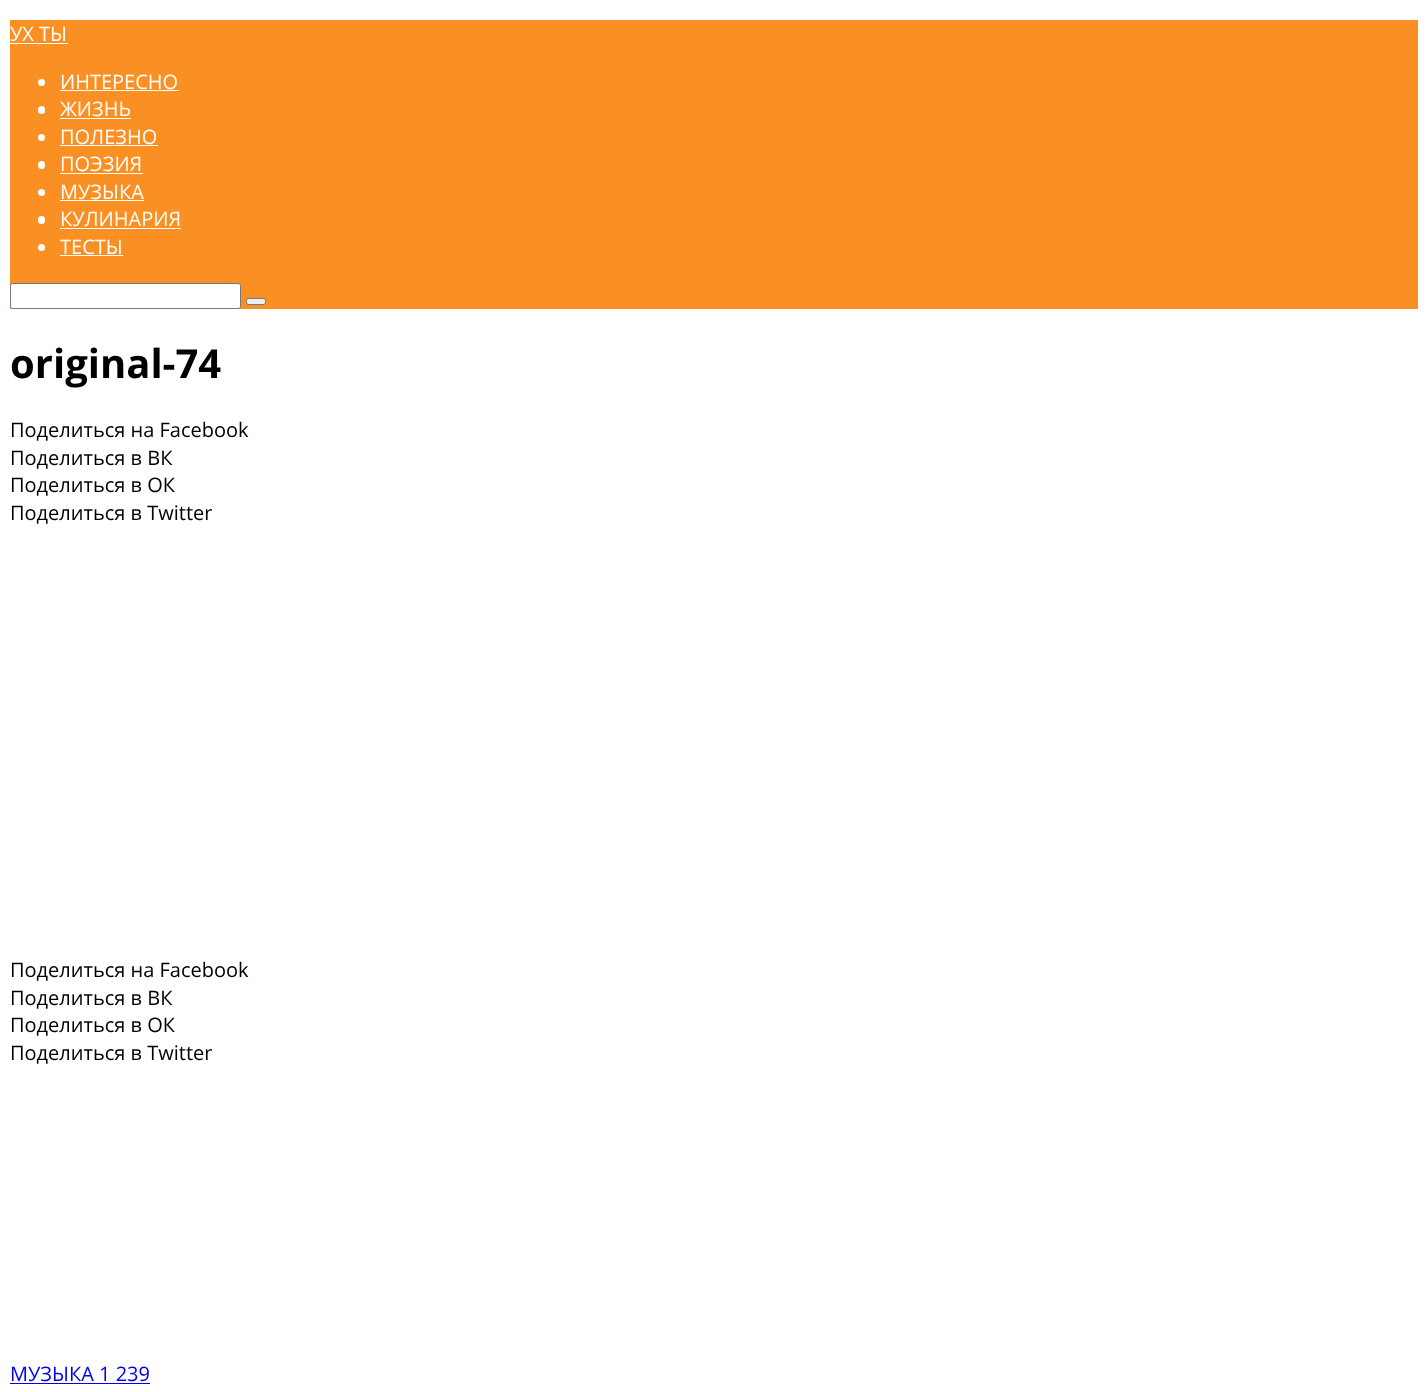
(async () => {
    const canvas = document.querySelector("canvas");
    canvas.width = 1427;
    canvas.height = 1392;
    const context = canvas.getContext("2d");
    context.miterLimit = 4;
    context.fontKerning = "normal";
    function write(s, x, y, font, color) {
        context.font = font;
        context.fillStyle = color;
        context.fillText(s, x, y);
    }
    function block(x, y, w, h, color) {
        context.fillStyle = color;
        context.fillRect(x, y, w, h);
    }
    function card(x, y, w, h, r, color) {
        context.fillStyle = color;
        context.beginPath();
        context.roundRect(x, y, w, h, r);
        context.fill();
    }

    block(0, 0, 1427, 1392, "rgb(255, 255, 255)");
    block(10, 20, 1408, 289, "rgb(250, 144, 35)");
    write("УХ ТЫ", 10, 41, "20px Open Sans", "rgb(255, 255, 255)");
    block(10, 43, 58, 1, "rgb(255, 255, 255)");
    context.beginPath();
    context.arc(41.5, 82.5, 3.5, 0, Math.PI * 2);
    context.fill();
    write("ИНТЕРЕСНО", 60, 89, "20px Open Sans", "rgb(255, 255, 255)");
    block(60, 90, 119, 1, "rgb(255, 255, 255)");
    card(38, 106, 7, 8, 3.5, "rgb(255, 255, 255)");
    write("ЖИЗНЬ", 60, 116, "20px Open Sans", "rgb(255, 255, 255)");
    block(60, 118, 71, 1, "rgb(255, 255, 255)");
    context.beginPath();
    context.arc(41.5, 137.5, 3.5, 0, Math.PI * 2);
    context.fill();
    write("ПОЛЕЗНО", 60, 144, "20px Open Sans", "rgb(255, 255, 255)");
    block(60, 145, 98, 1, "rgb(255, 255, 255)");
    card(38, 161, 7, 8, 3.5, "rgb(255, 255, 255)");
    write("ПОЭЗИЯ", 60, 171, "20px Open Sans", "rgb(255, 255, 255)");
    block(60, 173, 83, 1, "rgb(255, 255, 255)");
    context.beginPath();
    context.arc(41.5, 192.5, 3.5, 0, Math.PI * 2);
    context.fill();
    write("МУЗЫКА", 60, 199, "20px Open Sans", "rgb(255, 255, 255)");
    block(60, 200, 84, 1, "rgb(255, 255, 255)");
    card(38, 216, 7, 8, 3.5, "rgb(255, 255, 255)");
    write("КУЛИНАРИЯ", 60, 226, "20px Open Sans", "rgb(255, 255, 255)");
    block(60, 228, 121, 1, "rgb(255, 255, 255)");
    context.beginPath();
    context.arc(41.5, 247.5, 3.5, 0, Math.PI * 2);
    context.fill();
    write("ТЕСТЫ", 60, 254, "20px Open Sans", "rgb(255, 255, 255)");
    block(60, 255, 63, 1, "rgb(255, 255, 255)");
    context.beginPath();
    context.roundRect(10.5, 283.5, 230, 25, 2);
    context.fill();
    context.strokeStyle = "rgb(118, 118, 118)";
    context.stroke();
    context.fillStyle = "rgb(239, 239, 239)";
    context.beginPath();
    context.roundRect(246.5, 298.5, 19, 6, 2);
    context.fill();
    context.stroke();
    write("original-74", 10, 378, "bold 40px Open Sans", "rgb(0, 0, 0)");
    write("Поделиться на Facebook", 10, 437, "20px Open Sans", "rgb(0, 0, 0)");
    write("Поделиться в ВК", 10, 465, "20px Open Sans", "rgb(0, 0, 0)");
    write("Поделиться в ОК", 10, 492, "20px Open Sans", "rgb(0, 0, 0)");
    write("Поделиться в Twitter", 10, 520, "20px Open Sans", "rgb(0, 0, 0)");
    write("Поделиться на Facebook", 10, 977, "20px Open Sans", "rgb(0, 0, 0)");
    write("Поделиться в ВК", 10, 1005, "20px Open Sans", "rgb(0, 0, 0)");
    write("Поделиться в ОК", 10, 1032, "20px Open Sans", "rgb(0, 0, 0)");
    write("Поделиться в Twitter", 10, 1060, "20px Open Sans", "rgb(0, 0, 0)");
    write("МУЗЫКА 1 239", 10, 1381, "20px Open Sans", "rgb(0, 0, 238)");
    block(10, 1383, 140, 1, "rgb(0, 0, 238)");
})();
